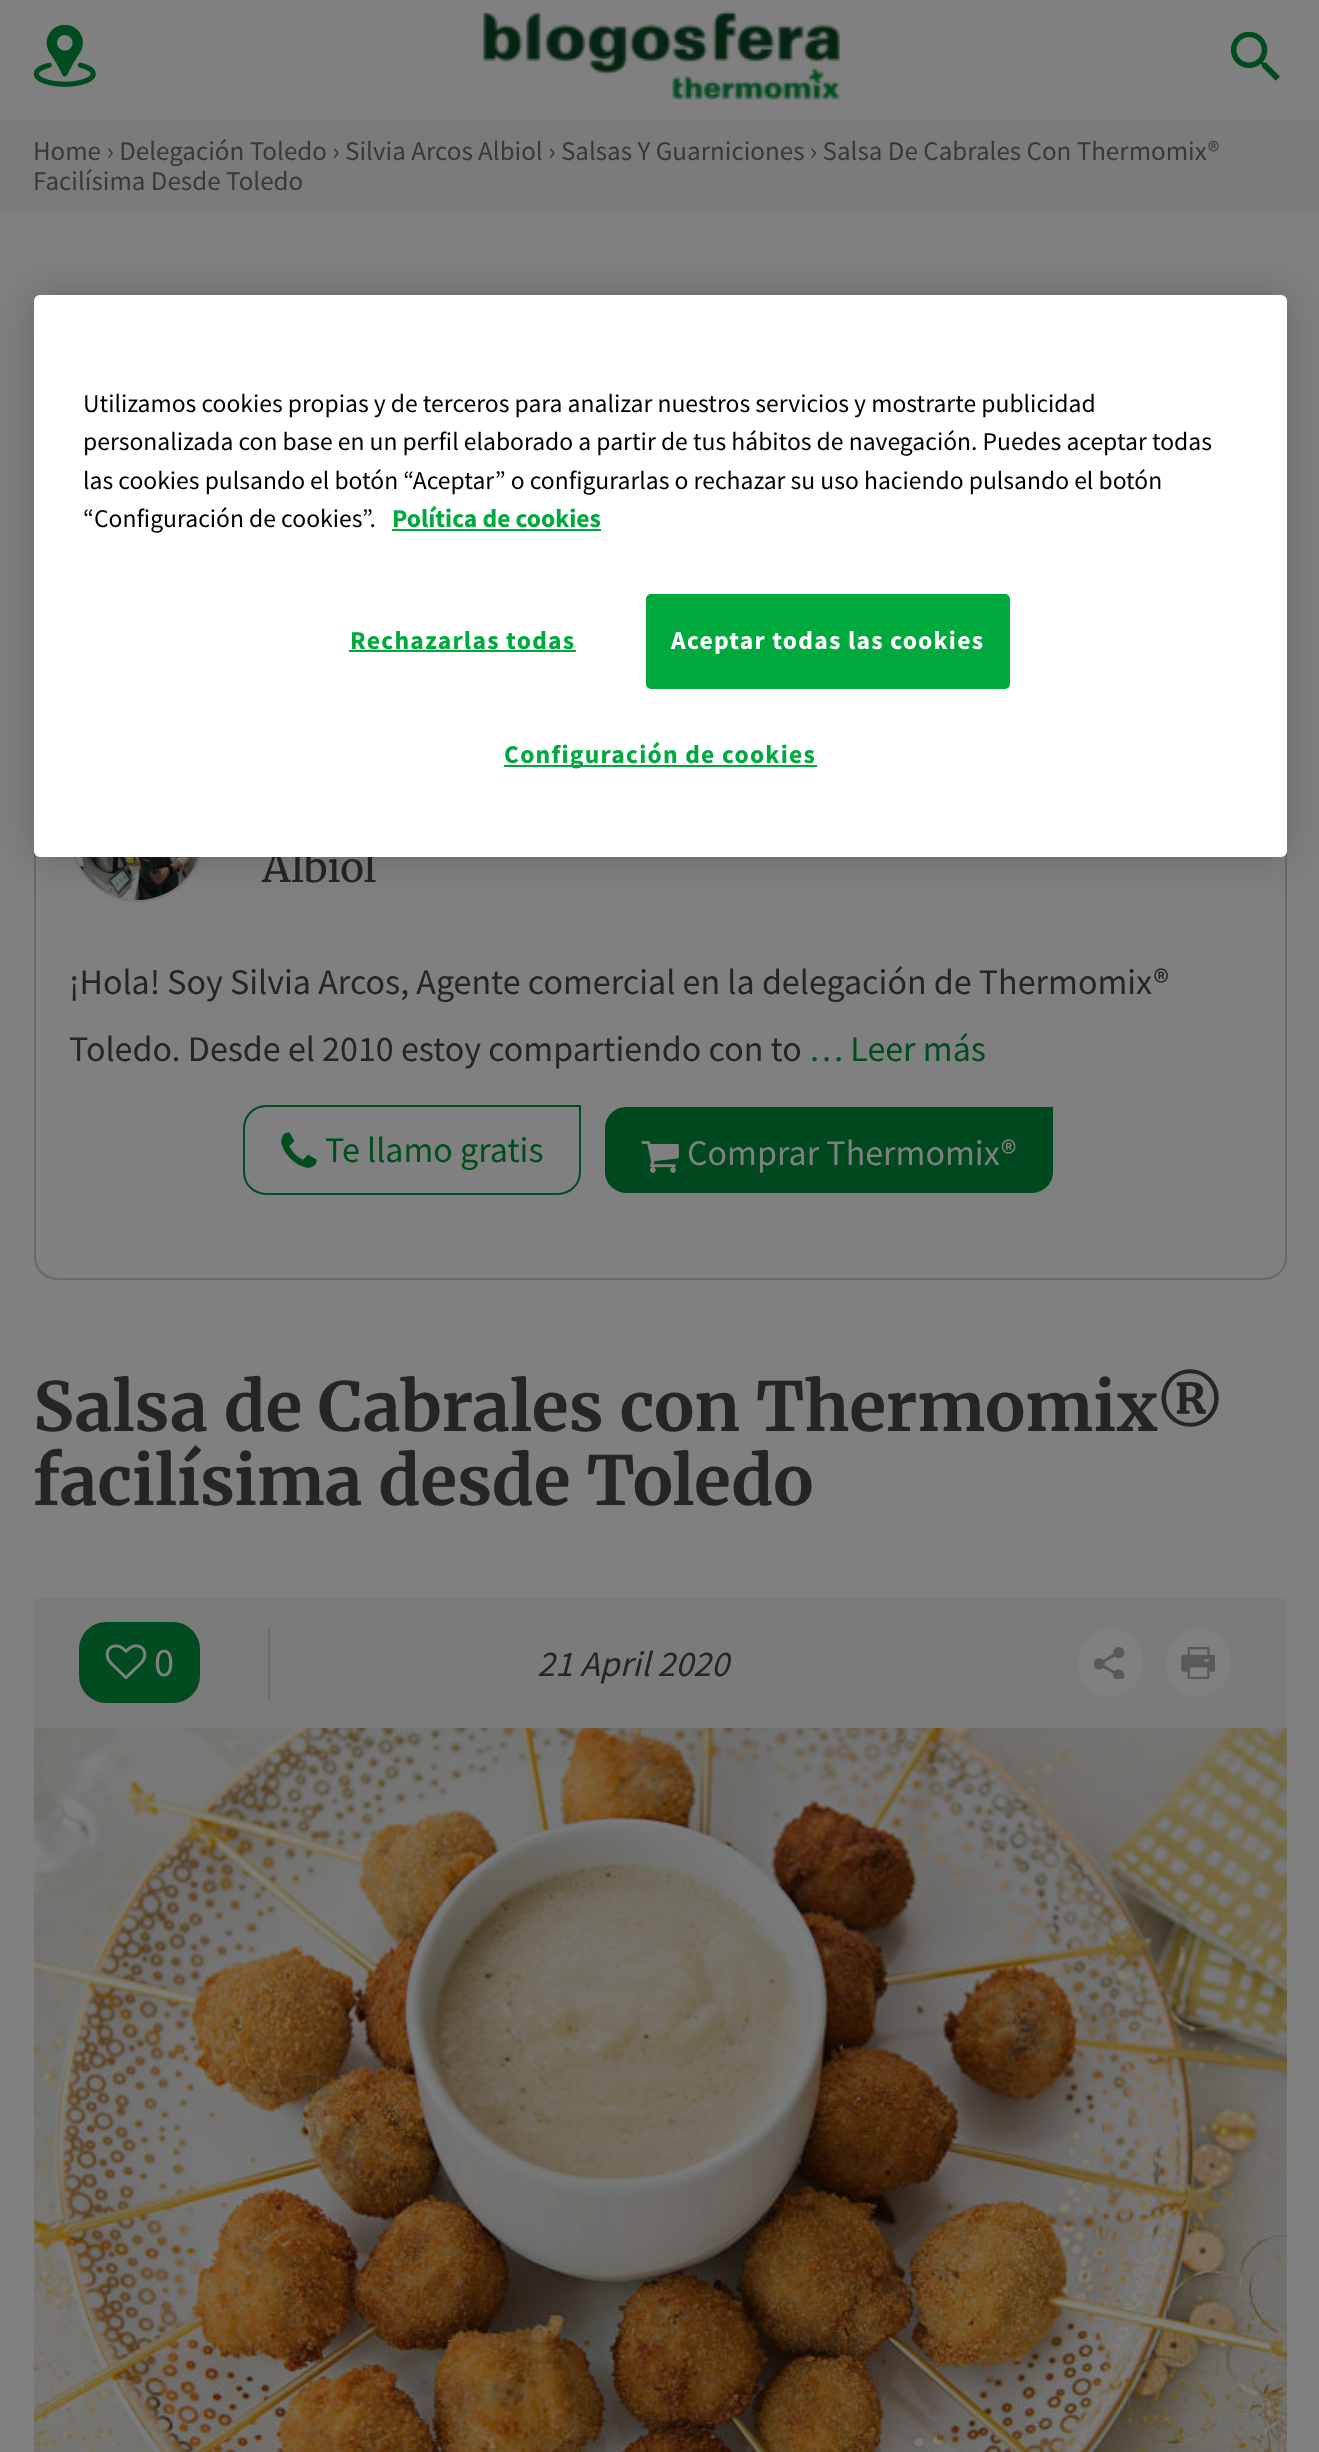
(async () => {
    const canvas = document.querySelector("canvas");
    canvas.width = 1319;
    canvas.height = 2452;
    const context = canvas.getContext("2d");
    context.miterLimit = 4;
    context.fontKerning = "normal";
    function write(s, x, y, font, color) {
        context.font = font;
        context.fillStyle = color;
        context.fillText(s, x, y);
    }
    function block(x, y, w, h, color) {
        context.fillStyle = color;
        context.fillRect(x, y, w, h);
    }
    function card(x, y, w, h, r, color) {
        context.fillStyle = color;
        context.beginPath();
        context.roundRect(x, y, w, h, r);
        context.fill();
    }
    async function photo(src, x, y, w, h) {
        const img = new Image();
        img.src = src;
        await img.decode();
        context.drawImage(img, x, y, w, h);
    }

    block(0, 0, 1319, 2452, "rgb(128, 128, 128)");
    await photo("media/1.png", 34, 25, 62, 62);
    await photo("media/2.png", 481, 10, 360, 90);
    await photo("media/3.png", 1231, 32, 49, 49);
    block(0, 119, 1319, 93, "rgb(123, 123, 123)");
    write("Home › Delegación Toledo › Silvia Arcos Albiol › Salsas Y Guarniciones › Salsa De Cabrales Con Thermomix®", 33, 160, "27px Source Sans Pro", "rgb(57, 57, 57)");
    write("Facilísima Desde Toledo", 33, 190, "27px Source Sans Pro", "rgb(57, 57, 57)");
    context.beginPath();
    context.roundRect(35, 656, 1251, 623, 22);
    context.strokeStyle = "rgb(105, 105, 105)";
    context.lineWidth = 2;
    context.stroke();
    context.beginPath();
    context.arc(137.5, 834.5, 66.5, 0, Math.PI * 2);
    context.strokeStyle = "rgb(117, 115, 115)";
    context.stroke();
    await photo("media/4.png", 76, 857, 123, 43);
    write("Albiol", 262, 882, "40.5px Merriweather", "rgb(38, 37, 38)");
    write("¡Hola! Soy Silvia Arcos, Agente comercial en la delegación de Thermomix®", 69, 994, "36px Source Sans Pro", "rgb(38, 37, 38)");
    write("Toledo. Desde el 2010 estoy compartiendo con to", 69, 1061, "36px Source Sans Pro", "rgb(38, 37, 38)");
    write("… Leer más", 809, 1061, "36px Source Sans Pro", "rgb(0, 78, 30)");
    context.beginPath();
    context.roundRect(244, 1106, 336, 88, [22, 0, 22, 22]);
    context.strokeStyle = "rgb(0, 76, 32)";
    context.stroke();
    await photo("media/5.png", 281, 1132, 36, 36);
    write("Te llamo gratis", 325, 1162, "36px Source Sans Pro", "rgb(0, 78, 30)");
    context.fillStyle = "rgb(0, 73, 31)";
    context.beginPath();
    context.roundRect(604, 1106, 450, 88, [22, 0, 22, 22]);
    context.fill();
    context.strokeStyle = "rgb(128, 128, 128)";
    context.stroke();
    await photo("media/6.png", 641, 1141, 38, 32);
    write("Comprar Thermomix®", 687, 1165, "36px Source Sans Pro", "rgb(128, 128, 128)");
    write("Salsa de Cabrales con Thermomix®", 33, 1431, "bold 67.5px Merriweather", "rgb(38, 37, 38)");
    write("facilísima desde Toledo", 33, 1505, "bold 67.5px Merriweather", "rgb(38, 37, 38)");
    block(34, 1598, 1253, 130, "rgb(123, 123, 123)");
    card(79, 1622, 121, 81, 27, "rgb(0, 76, 32)");
    await photo("media/7.png", 105, 1644, 42, 36);
    write("0", 154, 1676, "40.5px Source Sans Pro", "rgb(128, 128, 128)");
    block(268, 1627, 2, 74, "rgb(109, 109, 109)");
    write("21 April 2020", 537, 1676, "italic 36px Source Sans Pro", "rgb(38, 37, 38)");
    card(1078, 1629, 65, 68, 32.5, "rgb(128, 128, 128)");
    await photo("media/8.png", 1094, 1647, 31, 32);
    card(1166, 1629, 65, 68, 32.5, "rgb(128, 128, 128)");
    await photo("media/9.png", 1181, 1647, 34, 32);
    await photo("media/10.png", 33, 1728, 1254, 724);
    context.fillStyle = "rgba(0, 0, 0, 0.2)";
    context.filter = "blur(20px)";
    context.beginPath();
    context.roundRect(34, 295, 1253, 562, 6);
    context.fill();
    context.filter = "none";
    card(34, 295, 1253, 562, 6, "rgb(255, 255, 255)");
    write("Utilizamos cookies propias y de terceros para analizar nuestros servicios y mostrarte publicidad", 83, 412, "25.6px Source Sans Pro", "rgb(0, 0, 0)");
    write("personalizada con base en un perfil elaborado a partir de tus hábitos de navegación. Puedes aceptar todas", 83, 450, "25.6px Source Sans Pro", "rgb(0, 0, 0)");
    write("las cookies pulsando el botón “Aceptar” o configurarlas o rechazar su uso haciendo pulsando el botón", 83, 489, "25.6px Source Sans Pro", "rgb(0, 0, 0)");
    write("“Configuración de cookies”.", 83, 527, "25.6px Source Sans Pro", "rgb(0, 0, 0)");
    write("Política de cookies", 392, 527, "bold 25.6px Source Sans Pro", "rgb(0, 169, 61)");
    block(392, 529, 209, 2, "rgb(0, 169, 61)");
    context.letterSpacing = "1.25px";
    write("Rechazarlas todas", 350, 649, "bold 25.6px Source Sans Pro", "rgb(0, 169, 61)");
    block(349, 650, 227, 2, "rgb(0, 169, 61)");
    context.beginPath();
    context.roundRect(647, 595, 362, 93, 4);
    context.fill();
    context.strokeStyle = "rgb(0, 169, 61)";
    context.stroke();
    write("Aceptar todas las cookies", 671, 649, "bold 25.6px Source Sans Pro", "rgb(255, 255, 255)");
    block(504, 765, 313, 2, "rgb(0, 169, 61)");
    write("Configuración de cookies", 504, 763, "bold 25.6px Source Sans Pro", "rgb(0, 169, 61)");
})();
